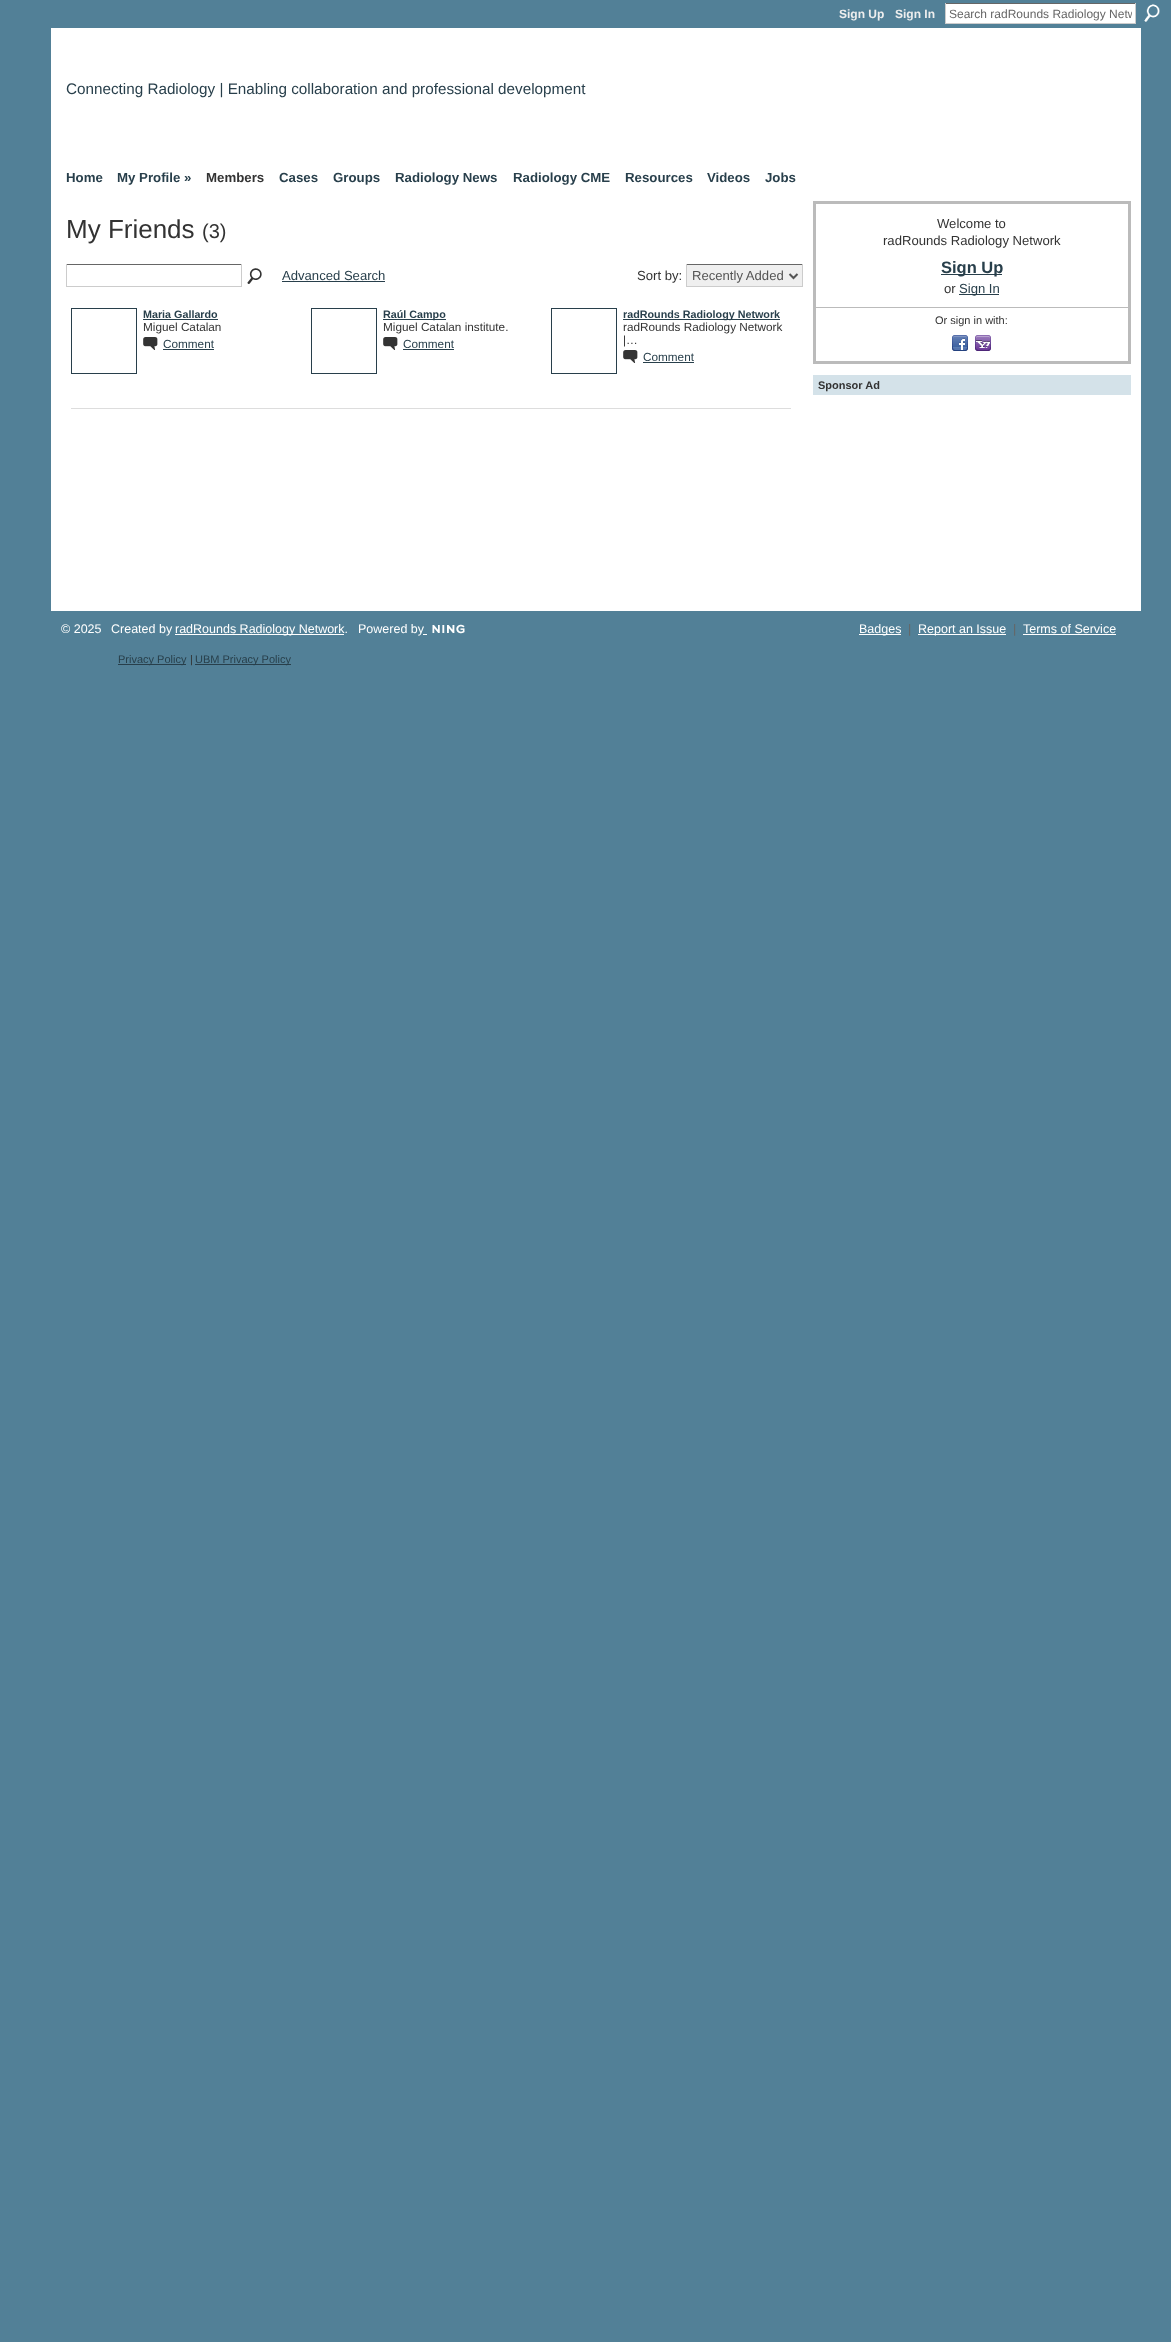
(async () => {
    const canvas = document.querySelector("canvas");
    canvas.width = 1171;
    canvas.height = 2342;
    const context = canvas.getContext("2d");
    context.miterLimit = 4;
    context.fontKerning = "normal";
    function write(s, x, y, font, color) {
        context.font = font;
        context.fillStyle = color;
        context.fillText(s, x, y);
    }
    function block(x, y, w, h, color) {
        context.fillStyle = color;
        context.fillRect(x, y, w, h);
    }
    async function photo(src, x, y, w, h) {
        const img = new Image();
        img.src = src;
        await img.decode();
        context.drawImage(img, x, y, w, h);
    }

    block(0, 0, 1171, 2342, "rgb(82, 128, 151)");
    write("Sign Up", 839, 18, "bold 12px Liberation Sans", "rgb(238, 238, 238)");
    write("Sign In", 895, 18, "bold 12px Liberation Sans", "rgb(238, 238, 238)");
    block(946, 4, 189, 19, "rgb(255, 255, 255)");
    block(945, 3, 191, 1, "rgb(102, 102, 102)");
    block(1135, 3, 1, 21, "rgb(204, 204, 204)");
    block(945, 23, 191, 1, "rgb(204, 204, 204)");
    block(945, 3, 1, 21, "rgb(204, 204, 204)");
    context.save();
    context.beginPath();
    context.rect(949, 7, 183, 14);
    context.clip();
    write("Search radRounds Radiology Netw", 949, 18, "12px Liberation Sans", "rgb(102, 102, 102)");
    context.restore();
    await photo("media/1.png", 1144, 4, 16, 18);
    block(51, 28, 1090, 583, "rgb(255, 255, 255)");
    write("Connecting Radiology | Enabling collaboration and professional development", 66, 94, "15.25px Liberation Sans", "rgb(40, 63, 75)");
    write("Home", 66, 182, "bold 13.25px Liberation Sans", "rgb(40, 63, 75)");
    write("My Profile »", 117, 182, "bold 13.25px Liberation Sans", "rgb(40, 63, 75)");
    write("Members", 206, 182, "bold 13.25px Liberation Sans", "rgb(51, 51, 51)");
    write("Cases", 279, 182, "bold 13.25px Liberation Sans", "rgb(40, 63, 75)");
    write("Groups", 333, 182, "bold 13.25px Liberation Sans", "rgb(40, 63, 75)");
    write("Radiology News", 395, 182, "bold 13.25px Liberation Sans", "rgb(40, 63, 75)");
    write("Radiology CME", 513, 182, "bold 13.25px Liberation Sans", "rgb(40, 63, 75)");
    write("Resources", 625, 182, "bold 13.25px Liberation Sans", "rgb(40, 63, 75)");
    write("Videos", 707, 182, "bold 13.25px Liberation Sans", "rgb(40, 63, 75)");
    write("Jobs", 765, 182, "bold 13.25px Liberation Sans", "rgb(40, 63, 75)");
    write("My Friends", 66, 238, "26px Liberation Sans", "rgb(51, 51, 51)");
    write("(3)", 202, 238, "20px Liberation Sans", "rgb(51, 51, 51)");
    block(66, 264, 176, 1, "rgb(102, 102, 102)");
    block(241, 264, 1, 23, "rgb(204, 204, 204)");
    block(66, 286, 176, 1, "rgb(204, 204, 204)");
    block(66, 264, 1, 23, "rgb(204, 204, 204)");
    await photo("media/2.png", 247, 268, 15, 16);
    write("Advanced Search", 282, 280, "13.1px Liberation Sans", "rgb(40, 63, 75)");
    block(282, 281, 103, 1, "rgb(40, 63, 75)");
    write("Sort by:", 637, 280, "13.1px Liberation Sans", "rgb(51, 51, 51)");
    block(687, 265, 115, 21, "rgb(239, 239, 239)");
    block(686, 264, 117, 1, "rgb(102, 102, 102)");
    block(802, 264, 1, 23, "rgb(204, 204, 204)");
    block(686, 286, 117, 1, "rgb(204, 204, 204)");
    block(686, 264, 1, 23, "rgb(204, 204, 204)");
    context.beginPath();
    context.moveTo(789.5, 274);
    context.lineTo(793.5, 278);
    context.lineTo(797.5, 274);
    context.strokeStyle = "rgb(85, 85, 85)";
    context.lineWidth = 2;
    context.stroke();
    write("Recently Added", 692, 280, "13.1px Liberation Sans", "rgb(85, 85, 85)");
    block(71, 408, 720, 1, "rgb(221, 221, 221)");
    context.strokeStyle = "rgb(40, 63, 75)";
    context.lineWidth = 1;
    context.strokeRect(71.5, 308.5, 65, 65);
    write("Maria Gallardo", 143, 318, "bold 10.75px Liberation Sans", "rgb(40, 63, 75)");
    block(143, 319, 75, 1, "rgb(40, 63, 75)");
    write("Miguel Catalan", 143, 331, "11.75px Liberation Sans", "rgb(51, 51, 51)");
    await photo("media/3.png", 143, 337, 15, 13);
    write("Comment", 163, 348, "11.75px Liberation Sans", "rgb(40, 63, 75)");
    block(163, 349, 51, 1, "rgb(40, 63, 75)");
    context.strokeRect(311.5, 308.5, 65, 65);
    block(383, 319, 63, 1, "rgb(40, 63, 75)");
    write("Raúl Campo", 383, 318, "bold 10.75px Liberation Sans", "rgb(40, 63, 75)");
    write("Miguel Catalan institute.", 383, 331, "11.75px Liberation Sans", "rgb(51, 51, 51)");
    await photo("media/3.png", 383, 337, 15, 13);
    write("Comment", 403, 348, "11.75px Liberation Sans", "rgb(40, 63, 75)");
    block(403, 349, 51, 1, "rgb(40, 63, 75)");
    context.strokeRect(551.5, 308.5, 65, 65);
    block(623, 319, 157, 1, "rgb(40, 63, 75)");
    write("radRounds Radiology Network", 623, 318, "bold 10.75px Liberation Sans", "rgb(40, 63, 75)");
    write("radRounds Radiology Network", 623, 331, "11.75px Liberation Sans", "rgb(51, 51, 51)");
    write("|…", 623, 344, "11.75px Liberation Sans", "rgb(51, 51, 51)");
    await photo("media/3.png", 623, 350, 15, 13);
    write("Comment", 643, 361, "11.75px Liberation Sans", "rgb(40, 63, 75)");
    block(643, 362, 51, 1, "rgb(40, 63, 75)");
    context.strokeStyle = "rgb(187, 187, 187)";
    context.lineWidth = 3;
    context.strokeRect(814.5, 202.5, 315, 160);
    write("Welcome to", 937, 228, "13.1px Liberation Sans", "rgb(51, 51, 51)");
    write("radRounds Radiology Network", 883, 245, "13.1px Liberation Sans", "rgb(51, 51, 51)");
    block(941, 274, 61, 1, "rgb(40, 63, 75)");
    write("Sign Up", 941, 273, "bold 16.5px Liberation Sans", "rgb(40, 63, 75)");
    write("or", 944, 293, "13.1px Liberation Sans", "rgb(51, 51, 51)");
    block(959, 294, 40, 1, "rgb(40, 63, 75)");
    write("Sign In", 959, 293, "13.1px Liberation Sans", "rgb(40, 63, 75)");
    block(816, 307, 312, 1, "rgb(187, 187, 187)");
    write("Or sign in with:", 935, 324, "11px Liberation Sans", "rgb(51, 51, 51)");
    await photo("media/4.png", 952, 335, 16, 16);
    await photo("media/5.png", 975, 335, 16, 16);
    block(813, 375, 318, 20, "rgb(212, 226, 233)");
    write("Sponsor Ad", 818, 389, "bold 11px Liberation Sans", "rgb(51, 51, 51)");
    write("© 2025", 61, 633, "12.5px Liberation Sans", "rgb(255, 255, 255)");
    write("Created by", 111, 633, "12.5px Liberation Sans", "rgb(255, 255, 255)");
    block(175, 634, 169, 1, "rgb(255, 255, 255)");
    write("radRounds Radiology Network.", 175, 633, "12.5px Liberation Sans", "rgb(255, 255, 255)");
    write("Powered by", 358, 633, "12.5px Liberation Sans", "rgb(255, 255, 255)");
    await photo("media/6.png", 432, 624, 33, 10);
    block(423, 634, 4, 1, "rgb(255, 255, 255)");
    block(859, 634, 42, 1, "rgb(255, 255, 255)");
    write("Badges", 859, 633, "12.5px Liberation Sans", "rgb(255, 255, 255)");
    write("|", 908, 633, "12.5px Liberation Sans", "rgb(102, 102, 102)");
    block(918, 634, 88, 1, "rgb(255, 255, 255)");
    write("Report an Issue", 918, 633, "12.5px Liberation Sans", "rgb(255, 255, 255)");
    write("|", 1013, 633, "12.5px Liberation Sans", "rgb(102, 102, 102)");
    write("Terms of Service", 1023, 633, "12.5px Liberation Sans", "rgb(255, 255, 255)");
    block(1023, 634, 93, 1, "rgb(255, 255, 255)");
    block(118, 664, 68, 1, "rgb(40, 63, 75)");
    write("Privacy Policy", 118, 663, "11px Liberation Sans", "rgb(40, 63, 75)");
    write("|", 190, 663, "11px Liberation Sans", "rgb(51, 51, 51)");
    block(195, 664, 96, 1, "rgb(40, 63, 75)");
    write("UBM Privacy Policy", 195, 663, "11px Liberation Sans", "rgb(40, 63, 75)");
})();
